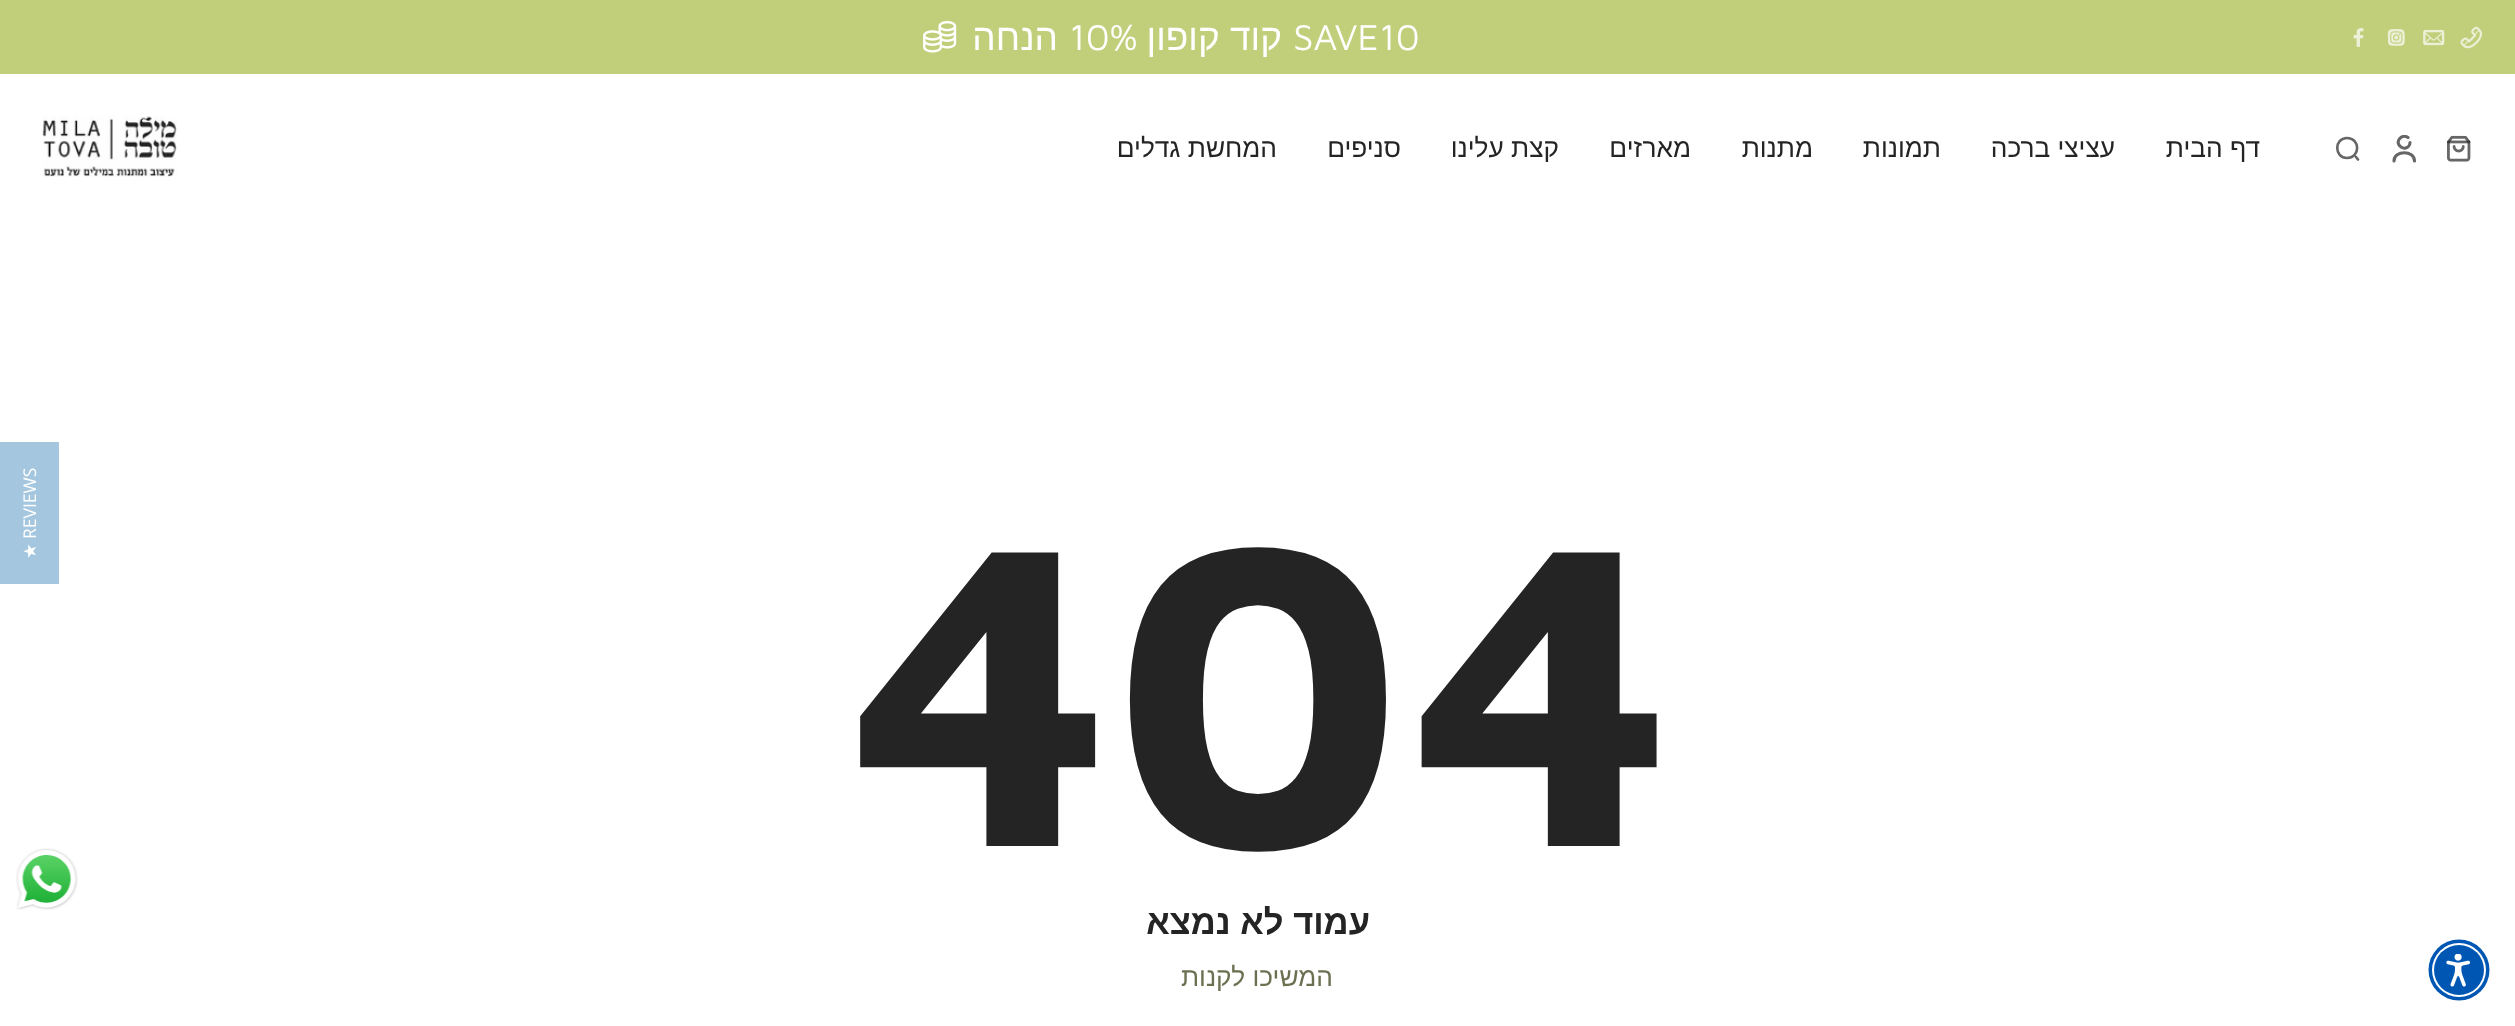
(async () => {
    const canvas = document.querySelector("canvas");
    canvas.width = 2515;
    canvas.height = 1026;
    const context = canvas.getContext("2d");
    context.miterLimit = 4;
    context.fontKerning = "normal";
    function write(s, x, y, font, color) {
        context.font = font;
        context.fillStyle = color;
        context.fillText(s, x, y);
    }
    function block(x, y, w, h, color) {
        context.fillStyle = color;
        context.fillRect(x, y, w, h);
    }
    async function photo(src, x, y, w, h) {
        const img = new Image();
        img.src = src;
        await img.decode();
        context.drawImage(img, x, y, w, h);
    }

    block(0, 0, 2515, 1026, "rgb(255, 255, 255)");
    block(0, 0, 2515, 74, "rgb(193, 206, 122)");
    await photo("media/1.png", 2460, 26, 22, 23);
    await photo("media/2.png", 2423, 29, 22, 17);
    await photo("media/3.png", 2387, 29, 18, 17);
    await photo("media/4.png", 2353, 28, 11, 19);
    write("SAVE10", 1293, 50, "37px Maven Pro", "rgb(255, 255, 255)");
    context.direction = "rtl";
    write("קוד קופון", 1282, 50, "37px Liberation Sans", "rgb(255, 255, 255)");
    context.direction = "ltr";
    write("10%", 1069, 50, "37px Maven Pro", "rgb(255, 255, 255)");
    context.direction = "rtl";
    write("הנחה", 1058, 50, "37px Liberation Sans", "rgb(255, 255, 255)");
    await photo("media/5.png", 923, 21, 34, 32);
    await photo("media/6.png", 2447, 135, 24, 27);
    context.save();
    context.beginPath();
    context.rect(2390, 135, 28, 28);
    context.clip();
    context.beginPath();
    context.moveTo(2408, 137.5);
    context.bezierCurveTo(2401.5, 133, 2394, 142.5, 2401, 147);
    context.bezierCurveTo(2402.5, 148, 2404, 148.5, 2405.5, 148);
    context.bezierCurveTo(2408, 147.5, 2410, 145, 2410, 142.5);
    context.strokeStyle = "rgb(102, 102, 102)";
    context.lineWidth = 3.1;
    context.lineCap = "round";
    context.lineJoin = "round";
    context.stroke();
    context.restore();
    context.beginPath();
    context.moveTo(2414.5, 161);
    context.bezierCurveTo(2414.5, 150, 2394, 150, 2394, 161);
    context.strokeStyle = "rgb(102, 102, 102)";
    context.lineWidth = 3.1;
    context.lineCap = "round";
    context.lineJoin = "round";
    context.stroke();
    context.beginPath();
    context.moveTo(2347, 158);
    context.bezierCurveTo(2360.5, 158, 2360.5, 138, 2347, 138);
    context.bezierCurveTo(2334, 138, 2334, 158, 2347, 158);
    context.closePath();
    context.moveTo(2358, 159.5);
    context.lineTo(2356, 157);
    context.lineWidth = 2.6;
    context.stroke();
    write("דף הבית", 2260, 157, "26.25px Liberation Sans", "rgb(36, 36, 36)");
    write("עציצי ברכה", 2115, 157, "26.25px Liberation Sans", "rgb(36, 36, 36)");
    write("תמונות", 1941, 157, "26.25px Liberation Sans", "rgb(36, 36, 36)");
    write("מתנות", 1813, 157, "26.25px Liberation Sans", "rgb(36, 36, 36)");
    write("מארזים", 1691, 157, "26.25px Liberation Sans", "rgb(36, 36, 36)");
    write("קצת עלינו", 1559, 157, "26.25px Liberation Sans", "rgb(36, 36, 36)");
    write("סניפים", 1401, 157, "26.25px Liberation Sans", "rgb(36, 36, 36)");
    write("המחשת גדלים", 1277, 157, "26.25px Liberation Sans", "rgb(36, 36, 36)");
    await photo("media/7.png", 42, 116, 135, 61);
    context.direction = "ltr";
    write("404", 843, 846, "bold 440px Maven Pro", "rgb(36, 36, 36)");
    context.direction = "rtl";
    write("עמוד לא נמצא", 1370, 934, "bold 34.5px Liberation Sans", "rgb(36, 36, 36)");
    write("המשיכו לקנות", 1333, 986, "26.25px Liberation Sans", "rgb(107, 112, 80)");
    block(0, 442, 59, 142, "rgb(164, 198, 222)");
    context.direction = "ltr";
    context.font = "17.5px Open Sans";
    context.fillStyle = "rgb(255, 255, 255)";
    context.save();
    context.translate(36, 539);
    context.rotate(-90 * Math.PI / 180);
    context.fillText("REVIEWS", 0, 0);
    context.restore();
    context.font = "17.5px DejaVu Sans";
    context.save();
    context.translate(36, 559);
    context.rotate(-90 * Math.PI / 180);
    context.fillText("★", 0, 0);
    context.restore();
    await photo("media/8.png", 16, 848, 62, 62);
    context.fillStyle = "rgb(0, 87, 179)";
    context.beginPath();
    context.arc(2459, 970, 30.5, 0, Math.PI * 2);
    context.fill();
    context.fillStyle = "rgb(255, 255, 255)";
    context.beginPath();
    context.arc(2459, 970, 27, 0, Math.PI * 2);
    context.fill();
    context.fillStyle = "rgb(0, 87, 179)";
    context.beginPath();
    context.arc(2459, 970, 25, 0, Math.PI * 2);
    context.fill();
    await photo("media/9.png", 2446, 954, 24, 33);
})();
